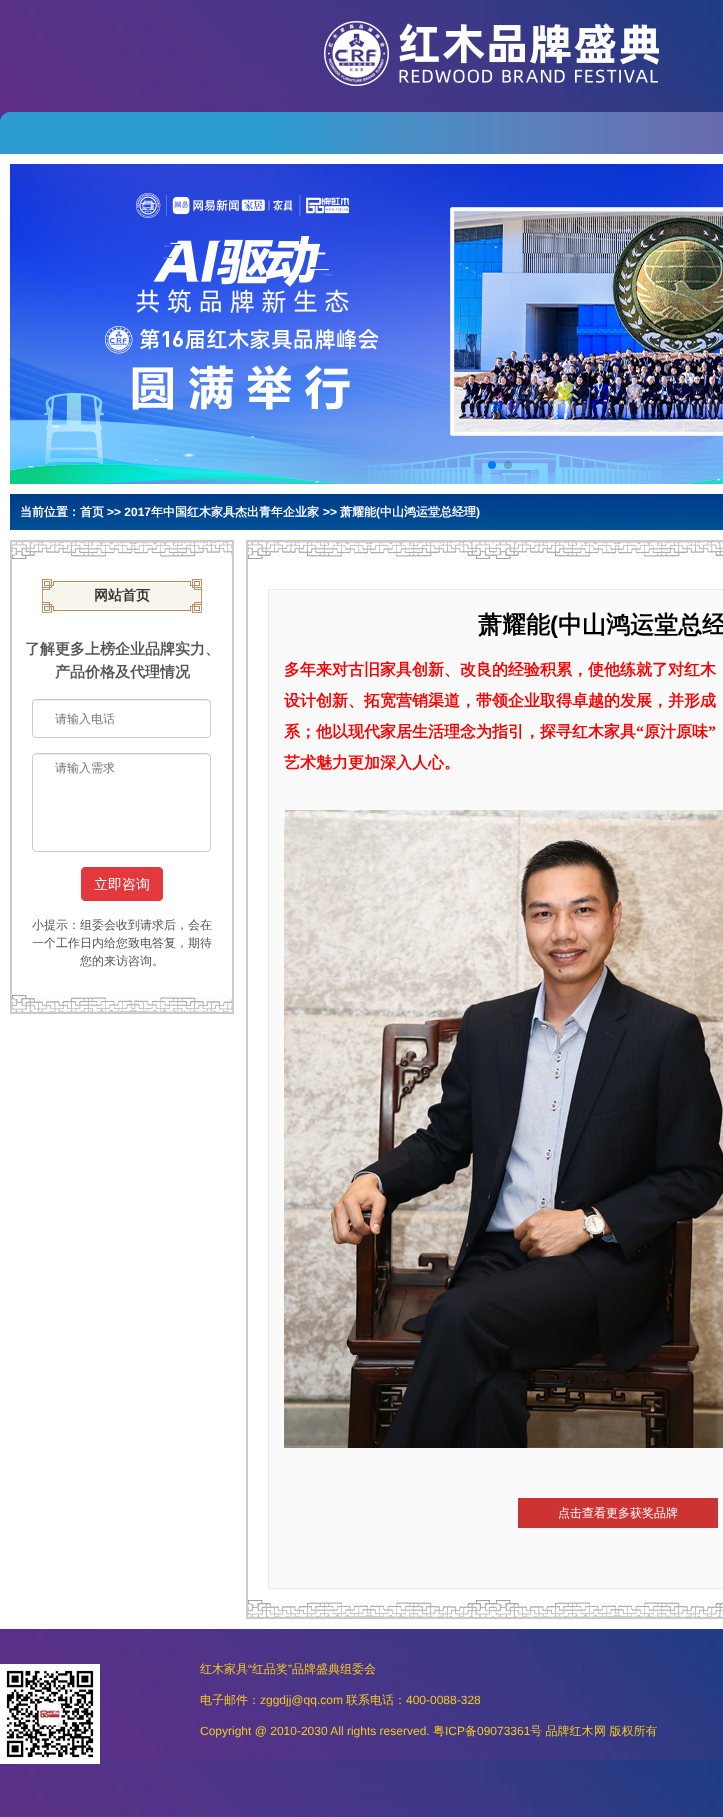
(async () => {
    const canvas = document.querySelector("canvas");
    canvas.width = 723;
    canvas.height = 1817;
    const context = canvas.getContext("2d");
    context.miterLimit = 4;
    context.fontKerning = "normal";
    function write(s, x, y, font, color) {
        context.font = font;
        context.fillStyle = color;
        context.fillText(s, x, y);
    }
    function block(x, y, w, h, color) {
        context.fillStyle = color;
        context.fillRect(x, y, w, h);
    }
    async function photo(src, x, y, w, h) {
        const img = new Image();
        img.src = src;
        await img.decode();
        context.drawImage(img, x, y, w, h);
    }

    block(0, 0, 723, 1817, "rgb(255, 255, 255)");
    await photo("media/1.png", 0, 0, 723, 1817);
    await photo("media/2.png", 324, 21, 335, 65);
    await photo("media/3.png", 0, 112, 723, 42);
    block(0, 154, 723, 1475, "rgb(255, 255, 255)");
    await photo("media/4.png", 10, 164, 713, 320);
    context.fillStyle = "rgb(0, 122, 255)";
    context.beginPath();
    context.arc(492, 465, 4, 0, Math.PI * 2);
    context.fill();
    context.fillStyle = "rgba(0, 0, 0, 0.2)";
    context.beginPath();
    context.arc(508, 465, 4, 0, Math.PI * 2);
    context.fill();
    await photo("media/5.png", 10, 494, 713, 36);
    write("当前位置：首页", 20, 516, "bold 12px WenQuanYi Zen Hei", "rgb(255, 255, 255)");
    write(">> 2017", 107, 516, "bold 12px Liberation Sans", "rgb(255, 255, 255)");
    write("年中国红木家具杰出青年企业家", 151, 516, "bold 12px WenQuanYi Zen Hei", "rgb(255, 255, 255)");
    write(">>", 323, 516, "bold 12px Liberation Sans", "rgb(255, 255, 255)");
    write("萧耀能", 340, 516, "bold 12px WenQuanYi Zen Hei", "rgb(255, 255, 255)");
    write("(", 376, 516, "bold 12px Liberation Sans", "rgb(255, 255, 255)");
    write("中山鸿运堂总经理", 380, 516, "bold 12px WenQuanYi Zen Hei", "rgb(255, 255, 255)");
    write(")", 476, 516, "bold 12px Liberation Sans", "rgb(255, 255, 255)");
    await photo("media/6.png", 12, 540, 220, 19);
    block(232, 540, 2, 474, "rgb(203, 203, 203)");
    block(10, 540, 2, 474, "rgb(203, 203, 203)");
    await photo("media/7.png", 12, 995, 220, 19);
    await photo("media/8.png", 42, 579, 160, 34);
    write("网站首页", 94, 600, "bold 14px WenQuanYi Zen Hei", "rgb(51, 51, 51)");
    write("了解更多上榜企业品牌实力、", 25, 654, "bold 15px WenQuanYi Zen Hei", "rgb(85, 85, 85)");
    write("产品价格及代理情况", 55, 677, "bold 15px WenQuanYi Zen Hei", "rgb(85, 85, 85)");
    context.fillStyle = "rgb(236, 236, 236)";
    context.beginPath();
    context.moveTo(36, 701);
    context.lineTo(207, 701);
    context.bezierCurveTo(209, 701, 210, 702, 210, 704);
    context.lineTo(210, 703);
    context.bezierCurveTo(210, 701, 209, 700, 207, 700);
    context.lineTo(36, 700);
    context.bezierCurveTo(34, 700, 33, 701, 33, 703);
    context.lineTo(33, 704);
    context.bezierCurveTo(33, 702, 34, 701, 36, 701);
    context.closePath();
    context.fill();
    context.beginPath();
    context.roundRect(32.5, 699.5, 178, 38, 3.5);
    context.strokeStyle = "rgb(204, 204, 204)";
    context.stroke();
    write("请输入电话", 55, 723, "500 12px WenQuanYi Zen Hei", "rgb(117, 117, 117)");
    context.fillStyle = "rgb(236, 236, 236)";
    context.beginPath();
    context.moveTo(36, 755);
    context.lineTo(207, 755);
    context.bezierCurveTo(209, 755, 210, 756, 210, 758);
    context.lineTo(210, 757);
    context.bezierCurveTo(210, 755, 209, 754, 207, 754);
    context.lineTo(36, 754);
    context.bezierCurveTo(34, 754, 33, 755, 33, 757);
    context.lineTo(33, 758);
    context.bezierCurveTo(33, 756, 34, 755, 36, 755);
    context.closePath();
    context.fill();
    context.beginPath();
    context.roundRect(32.5, 753.5, 178, 98, 3.5);
    context.stroke();
    write("请输入需求", 55, 772, "500 12px WenQuanYi Zen Hei", "rgb(117, 117, 117)");
    context.fillStyle = "rgb(228, 57, 60)";
    context.beginPath();
    context.roundRect(81.5, 867.5, 81, 33, 3.5);
    context.fill();
    context.strokeStyle = "rgb(228, 57, 60)";
    context.stroke();
    write("立即咨询", 94, 889, "500 14px WenQuanYi Zen Hei", "rgb(255, 255, 255)");
    write("小提示：组委会收到请求后，会在", 32, 929, "500 12px WenQuanYi Zen Hei", "rgb(85, 85, 85)");
    write("一个工作日内给您致电答复，期待", 32, 947, "500 12px WenQuanYi Zen Hei", "rgb(85, 85, 85)");
    write("您的来访咨询。", 80, 965, "500 12px WenQuanYi Zen Hei", "rgb(85, 85, 85)");
    await photo("media/9.png", 248, 540, 475, 19);
    block(246, 540, 2, 1079, "rgb(203, 203, 203)");
    await photo("media/10.png", 248, 1600, 475, 19);
    context.fillStyle = "rgb(250, 250, 250)";
    context.beginPath();
    context.rect(268.5, 589.5, 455, 999);
    context.fill();
    context.strokeStyle = "rgb(233, 233, 233)";
    context.stroke();
    write("萧耀能", 478, 633, "bold 24px WenQuanYi Zen Hei", "rgb(0, 0, 0)");
    write("(", 550, 633, "bold 24px Liberation Sans", "rgb(0, 0, 0)");
    write("中山鸿运堂总经", 558, 633, "bold 24px WenQuanYi Zen Hei", "rgb(0, 0, 0)");
    write("多年来对古旧家具创新、改良的经验积累，使他练就了对红木", 284, 675, "bold 16px WenQuanYi Zen Hei", "rgb(255, 0, 0)");
    write("设计创新、拓宽营销渠道，带领企业取得卓越的发展，并形成", 284, 706, "bold 16px WenQuanYi Zen Hei", "rgb(255, 0, 0)");
    write("系；他以现代家居生活理念为指引，探寻红木家具", 284, 737, "bold 16px WenQuanYi Zen Hei", "rgb(255, 0, 0)");
    write("“", 636, 737, "bold 16px Liberation Serif", "rgb(255, 0, 0)");
    write("原汁原味", 644, 737, "bold 16px WenQuanYi Zen Hei", "rgb(255, 0, 0)");
    write("”", 708, 737, "bold 16px Liberation Serif", "rgb(255, 0, 0)");
    write("艺术魅力更加深入人心。", 284, 768, "bold 16px WenQuanYi Zen Hei", "rgb(255, 0, 0)");
    await photo("media/11.png", 284, 810, 439, 638);
    block(518, 1498, 200, 30, "rgb(204, 51, 51)");
    write("点击查看更多获奖品牌", 558, 1517, "500 12px WenQuanYi Zen Hei", "rgb(255, 255, 255)");
    await photo("media/12.png", 0, 1664, 100, 100);
    write("红木家具", 200, 1673, "500 12px WenQuanYi Zen Hei", "rgb(243, 202, 30)");
    write("“", 248, 1673, "12px Liberation Sans", "rgb(243, 202, 30)");
    write("红品奖", 252, 1673, "500 12px WenQuanYi Zen Hei", "rgb(243, 202, 30)");
    write("”", 288, 1673, "12px Liberation Sans", "rgb(243, 202, 30)");
    write("品牌盛典组委会", 292, 1673, "500 12px WenQuanYi Zen Hei", "rgb(243, 202, 30)");
    write("电子邮件：", 200, 1704, "500 12px WenQuanYi Zen Hei", "rgb(243, 202, 30)");
    write("zggdjj@qq.com", 260, 1704, "12px Liberation Sans", "rgb(243, 202, 30)");
    write("联系电话：", 346, 1704, "500 12px WenQuanYi Zen Hei", "rgb(243, 202, 30)");
    write("400-0088-328", 406, 1704, "12px Liberation Sans", "rgb(243, 202, 30)");
    write("Copyright @ 2010-2030 All rights reserved.", 200, 1735, "12px Liberation Sans", "rgb(243, 202, 30)");
    write("粤", 433, 1735, "500 12px WenQuanYi Zen Hei", "rgb(243, 202, 30)");
    write("ICP", 445, 1735, "12px Liberation Sans", "rgb(243, 202, 30)");
    write("备", 465, 1735, "500 12px WenQuanYi Zen Hei", "rgb(243, 202, 30)");
    write("09073361", 477, 1735, "12px Liberation Sans", "rgb(243, 202, 30)");
    write("号 品牌红木", 530, 1735, "500 12px WenQuanYi Zen Hei", "rgb(243, 202, 30)");
    write("网 版权所有", 594, 1735, "500 12px WenQuanYi Zen Hei", "rgb(243, 202, 30)");
})();
